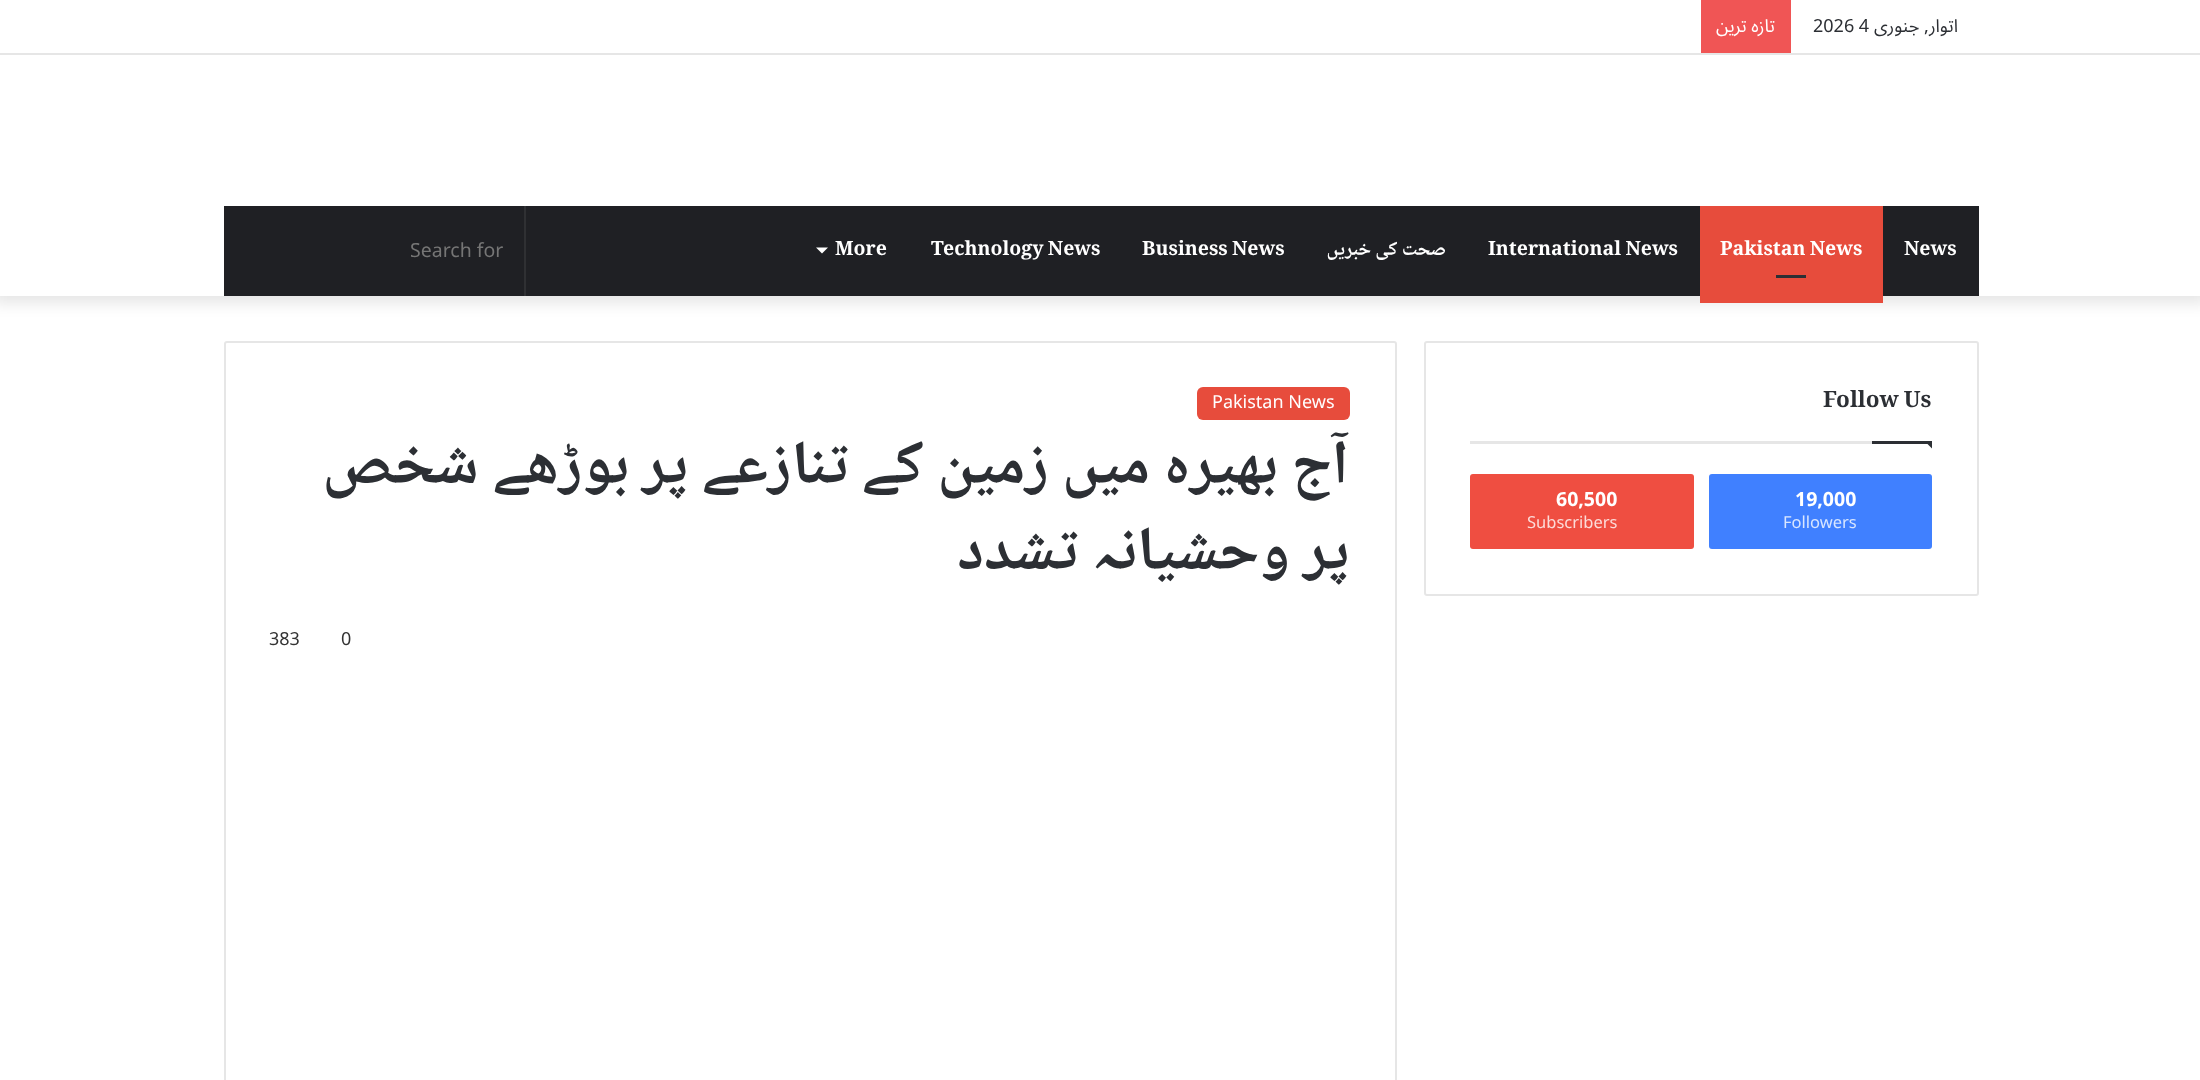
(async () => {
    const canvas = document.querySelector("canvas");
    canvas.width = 2200;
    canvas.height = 1080;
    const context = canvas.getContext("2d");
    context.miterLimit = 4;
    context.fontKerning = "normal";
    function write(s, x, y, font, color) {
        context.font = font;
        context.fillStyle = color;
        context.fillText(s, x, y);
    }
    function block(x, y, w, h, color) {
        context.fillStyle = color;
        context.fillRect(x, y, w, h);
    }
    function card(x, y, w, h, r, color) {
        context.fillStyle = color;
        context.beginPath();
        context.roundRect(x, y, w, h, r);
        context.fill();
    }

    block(0, 0, 2200, 1080, "rgb(255, 255, 255)");
    context.fillStyle = "rgba(0, 0, 0, 0.1)";
    context.filter = "blur(7.5px)";
    context.beginPath();
    context.rect(-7, -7, 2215, 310);
    context.fill();
    context.filter = "none";
    block(0, 0, 2200, 296, "rgb(255, 255, 255)");
    block(0, 53, 2200, 2, "rgb(230, 230, 230)");
    block(1701, 0, 90, 53, "rgb(240, 85, 85)");
    context.direction = "rtl";
    write("تازہ ترین", 1775, 32, "18px Noto Sans Arabic", "rgb(255, 255, 255)");
    context.direction = "ltr";
    write("2026 4", 1813, 32, "18px Noto Sans Arabic", "rgb(44, 47, 52)");
    context.direction = "rtl";
    write("اتوار, جنوری", 1958, 32, "18px Noto Sans Arabic", "rgb(44, 47, 52)");
    block(224, 206, 1755, 90, "rgb(31, 32, 36)");
    block(524, 206, 2, 90, "rgb(47, 48, 51)");
    context.direction = "ltr";
    write("Search for", 410, 257, "19.5px Noto Sans Arabic", "rgb(117, 117, 117)");
    context.fillStyle = "rgb(255, 255, 255)";
    context.beginPath();
    context.moveTo(816, 247.5);
    context.lineTo(828, 247.5);
    context.lineTo(822, 253.5);
    context.closePath();
    context.fill();
    write("More", 835, 255, "bold 19.5px Noto Naskh Arabic", "rgb(255, 255, 255)");
    write("Technology News", 931, 255, "bold 19.5px Noto Naskh Arabic", "rgb(255, 255, 255)");
    write("Business News", 1142, 255, "bold 19.5px Noto Naskh Arabic", "rgb(255, 255, 255)");
    context.direction = "rtl";
    write("صحت کی خبریں", 1446, 255, "bold 19.5px Noto Naskh Arabic", "rgb(255, 255, 255)");
    context.direction = "ltr";
    write("International News", 1488, 255, "bold 19.5px Noto Naskh Arabic", "rgb(255, 255, 255)");
    block(1700, 206, 183, 97, "rgb(231, 76, 60)");
    write("Pakistan News", 1720, 255, "bold 19.5px Noto Naskh Arabic", "rgb(255, 255, 255)");
    block(1776, 275, 30, 3, "rgb(44, 47, 52)");
    write("News", 1904, 255, "bold 19.5px Noto Naskh Arabic", "rgb(255, 255, 255)");
    context.beginPath();
    context.roundRect(225, 342, 1171, 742, 2);
    context.strokeStyle = "rgb(230, 230, 230)";
    context.lineWidth = 2;
    context.stroke();
    card(1197, 387, 153, 33, 6, "rgb(231, 76, 60)");
    write("Pakistan News", 1212, 408, "18px Noto Sans Arabic", "rgb(255, 255, 255)");
    context.direction = "rtl";
    write("بوڑھے شخص", 629, 483, "bold 61.5px Noto Naskh Arabic", "rgb(44, 47, 52)");
    write("آج بھیرہ میں زمین کے تنازعے پر", 1349, 483, "bold 61.5px Noto Naskh Arabic", "rgb(44, 47, 52)");
    write("پر وحشیانہ تشدد", 1349, 569, "bold 61.5px Noto Naskh Arabic", "rgb(44, 47, 52)");
    context.direction = "ltr";
    write("383", 269, 645, "18px Noto Sans Arabic", "rgb(51, 51, 51)");
    write("0", 341, 645, "18px Noto Sans Arabic", "rgb(51, 51, 51)");
    context.beginPath();
    context.roundRect(1425, 342, 553, 253, 2);
    context.stroke();
    block(1470, 441, 402, 3, "rgb(230, 230, 230)");
    write("Follow Us", 1823, 407, "bold 22.5px Noto Naskh Arabic", "rgb(44, 47, 52)");
    context.beginPath();
    context.moveTo(1924.5, 441);
    context.lineTo(1932, 441);
    context.lineTo(1932, 448.5);
    context.closePath();
    context.fill();
    block(1872, 441, 60, 3, "rgb(44, 47, 52)");
    card(1470, 474, 224, 75, 3, "rgb(239, 78, 65)");
    write("60,500", 1556, 506, "bold 19.5px Noto Sans Arabic", "rgb(255, 255, 255)");
    write("Subscribers", 1527, 528, "16.5px Noto Sans Arabic", "rgb(252, 220, 217)");
    card(1709, 474, 223, 75, 3, "rgb(64, 128, 255)");
    write("19,000", 1795, 506, "bold 19.5px Noto Sans Arabic", "rgb(255, 255, 255)");
    write("Followers", 1783, 528, "16.5px Noto Sans Arabic", "rgb(217, 230, 255)");
})();
